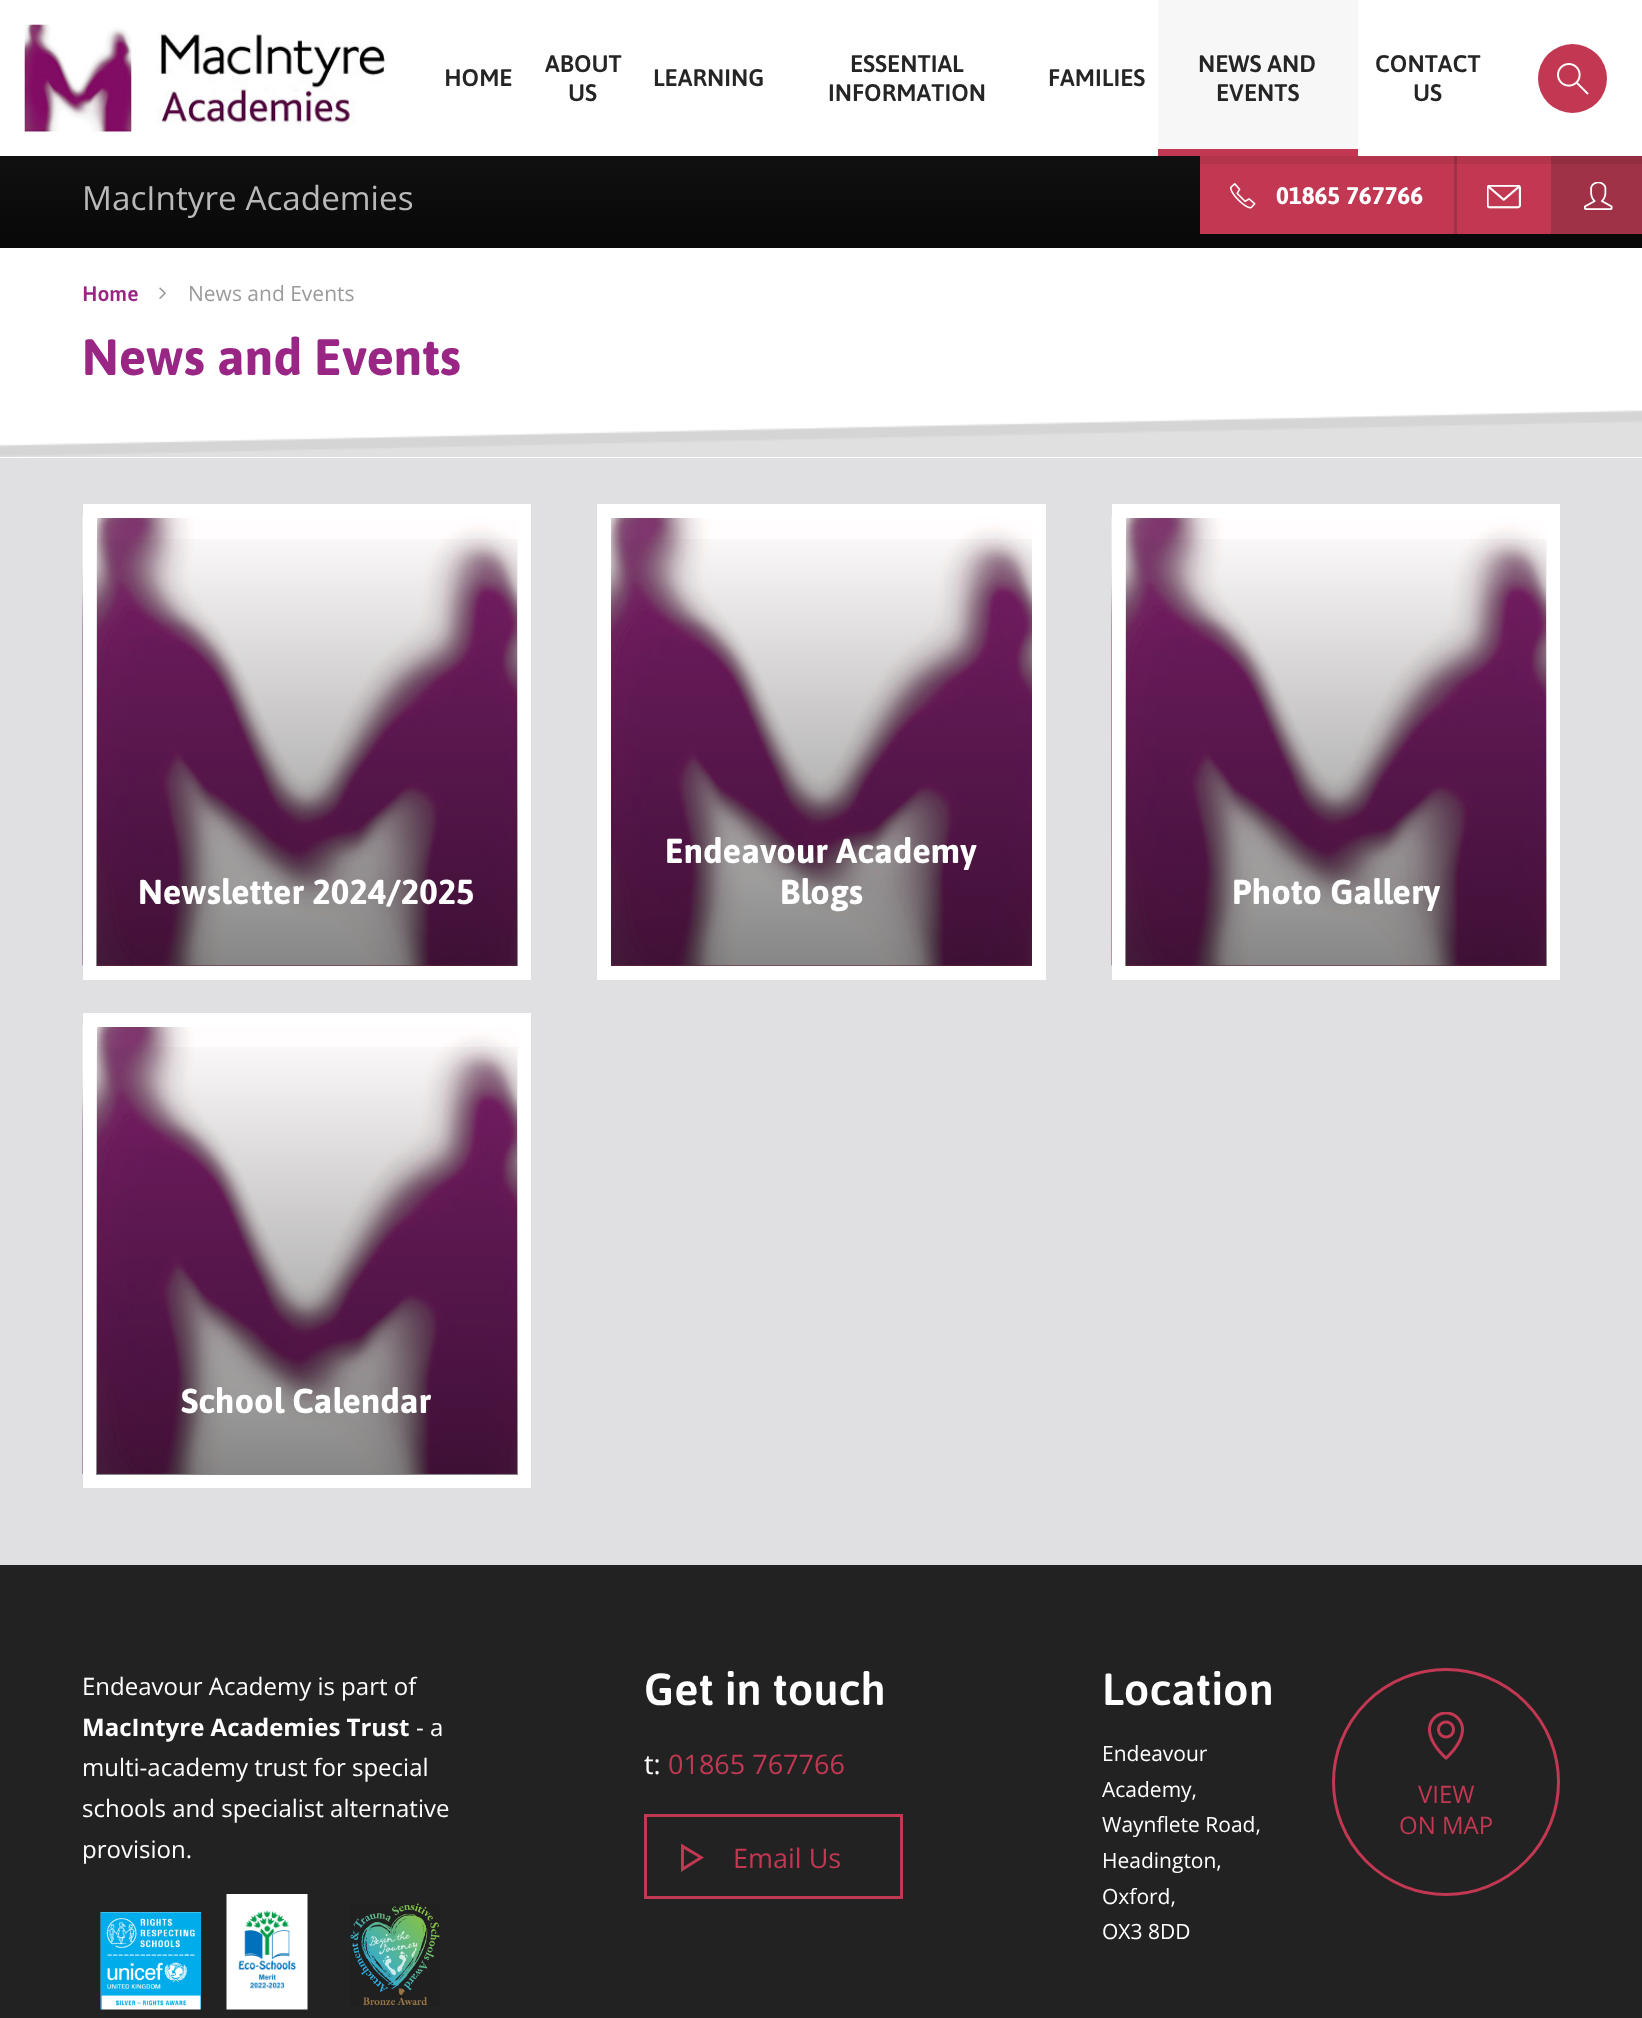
(async () => {
    const canvas = document.querySelector("canvas");
    canvas.width = 1642;
    canvas.height = 2018;
    const context = canvas.getContext("2d");
    context.miterLimit = 4;
    context.fontKerning = "normal";
    function write(s, x, y, font, color) {
        context.font = font;
        context.fillStyle = color;
        context.fillText(s, x, y);
    }
    function block(x, y, w, h, color) {
        context.fillStyle = color;
        context.fillRect(x, y, w, h);
    }
    async function photo(src, x, y, w, h) {
        const img = new Image();
        img.src = src;
        await img.decode();
        context.drawImage(img, x, y, w, h);
    }
    let gradient;

    block(0, 0, 1642, 2018, "rgb(224, 224, 227)");
    gradient = context.createLinearGradient(821, -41, 821, 248);
    gradient.addColorStop(0, "rgb(34, 34, 34)");
    gradient.addColorStop(1, "rgb(8, 8, 8)");
    context.fillStyle = gradient;
    context.fillRect(0, 156, 1642, 92);
    write("MacIntyre Academies", 82, 210, "33.25px Open Sans", "rgb(185, 185, 185)");
    block(0, 0, 1642, 156, "rgb(255, 255, 255)");
    await photo("media/1.png", 24, 24, 363, 108);
    write("HOME", 444, 86, "500 24px Asap", "rgb(37, 37, 37)");
    write("ABOUT", 545, 72, "500 24px Asap", "rgb(37, 37, 37)");
    write("US", 568, 101, "500 24px Asap", "rgb(37, 37, 37)");
    write("LEARNING", 653, 86, "500 24px Asap", "rgb(37, 37, 37)");
    write("ESSENTIAL", 850, 72, "500 24px Asap", "rgb(37, 37, 37)");
    write("INFORMATION", 828, 101, "500 24px Asap", "rgb(37, 37, 37)");
    write("FAMILIES", 1048, 86, "500 24px Asap", "rgb(37, 37, 37)");
    block(1158, 0, 200, 149, "rgb(247, 247, 247)");
    write("NEWS AND", 1198, 72, "500 24px Asap", "rgb(37, 37, 37)");
    write("EVENTS", 1216, 101, "500 24px Asap", "rgb(37, 37, 37)");
    block(1158, 149, 200, 7, "rgb(194, 56, 82)");
    write("CONTACT", 1375, 72, "500 24px Asap", "rgb(37, 37, 37)");
    write("US", 1413, 101, "500 24px Asap", "rgb(37, 37, 37)");
    context.fillStyle = "rgb(194, 56, 82)";
    context.beginPath();
    context.arc(1572.5, 78.5, 34.5, 0, Math.PI * 2);
    context.fill();
    await photo("media/2.png", 1557, 63, 32, 32);
    block(1200, 156, 351, 78, "rgb(194, 56, 82)");
    await photo("media/3.png", 1230, 183, 26, 26);
    write("01865 767766", 1276, 204, "bold 24px Asap", "rgb(255, 255, 255)");
    block(1454, 156, 3, 78, "rgb(159, 50, 71)");
    await photo("media/4.png", 1487, 185, 34, 24);
    block(1551, 156, 91, 78, "rgb(159, 50, 71)");
    await photo("media/5.png", 1584, 182, 29, 28);
    block(1200, 156, 442, 8, "rgba(0, 0, 0, 0.07)");
    block(0, 248, 1642, 210, "rgb(255, 255, 255)");
    write("Home", 82, 301, "500 21px Asap", "rgb(153, 38, 132)");
    await photo("media/6.png", 159, 287, 7, 12);
    write("News and Events", 188, 301, "21px Open Sans", "rgb(155, 155, 155)");
    write("News and Events", 82, 375, "bold 51px Asap", "rgb(153, 38, 132)");
    await photo("media/7.png", 0, 410, 1642, 47);
    block(97, 965, 420, 1, "rgb(194, 56, 82)");
    await photo("media/8.png", 82, 517, 435, 449);
    context.strokeStyle = "rgb(255, 255, 255)";
    context.lineWidth = 14;
    context.strokeRect(90, 511, 434, 462);
    gradient = context.createLinearGradient(307, 518, 307, 966);
    gradient.addColorStop(0, "rgba(0, 0, 0, 0)");
    gradient.addColorStop(1, "rgba(0, 0, 0, 0.47)");
    context.fillStyle = gradient;
    context.fillRect(96, 539, 422, 427);
    write("Newsletter 2024/2025", 138, 904, "bold 34.5px Asap", "rgb(255, 255, 255)");
    block(611, 965, 421, 1, "rgb(194, 56, 82)");
    await photo("media/9.png", 611, 518, 421, 448);
    context.strokeRect(604, 511, 435, 462);
    gradient = context.createLinearGradient(821, 518, 821, 966);
    gradient.addColorStop(0, "rgba(0, 0, 0, 0)");
    gradient.addColorStop(1, "rgba(0, 0, 0, 0.47)");
    context.fillStyle = gradient;
    context.fillRect(611, 539, 421, 427);
    write("Endeavour Academy", 665, 863, "bold 34.5px Asap", "rgb(255, 255, 255)");
    write("Blogs", 780, 904, "bold 34.5px Asap", "rgb(255, 255, 255)");
    block(1126, 965, 420, 1, "rgb(194, 56, 82)");
    await photo("media/8.png", 1111, 517, 435, 449);
    context.strokeRect(1119, 511, 434, 462);
    gradient = context.createLinearGradient(1336, 518, 1336, 966);
    gradient.addColorStop(0, "rgba(0, 0, 0, 0)");
    gradient.addColorStop(1, "rgba(0, 0, 0, 0.47)");
    context.fillStyle = gradient;
    context.fillRect(1125, 539, 422, 427);
    write("Photo Gallery", 1232, 904, "bold 34.5px Asap", "rgb(255, 255, 255)");
    await photo("media/10.png", 82, 1025, 435, 449);
    context.strokeRect(90, 1020, 434, 461);
    gradient = context.createLinearGradient(307, 1026, 307, 1475);
    gradient.addColorStop(0, "rgba(0, 0, 0, 0)");
    gradient.addColorStop(1, "rgba(0, 0, 0, 0.47)");
    context.fillStyle = gradient;
    context.fillRect(96, 1047, 422, 428);
    write("School Calendar", 181, 1413, "bold 34.5px Asap", "rgb(255, 255, 255)");
    block(0, 1565, 1642, 453, "rgb(34, 34, 34)");
    write("Endeavour Academy is part of", 82, 1695, "24px Open Sans", "rgb(255, 255, 255)");
    write("MacIntyre Academies Trust", 82, 1736, "bold 24px Open Sans", "rgb(255, 255, 255)");
    write("- a", 416, 1736, "24px Open Sans", "rgb(255, 255, 255)");
    write("multi-academy trust for special", 82, 1776, "24px Open Sans", "rgb(255, 255, 255)");
    write("schools and specialist alternative", 82, 1817, "24px Open Sans", "rgb(255, 255, 255)");
    write("provision.", 82, 1858, "24px Open Sans", "rgb(255, 255, 255)");
    await photo("media/11.png", 100, 1912, 101, 98);
    await photo("media/12.png", 226, 1894, 82, 116);
    await photo("media/13.png", 350, 1903, 90, 103);
    write("Get in touch", 644, 1705, "500 45px Asap", "rgb(255, 255, 255)");
    write("t:", 644, 1774, "27px Open Sans", "rgb(255, 255, 255)");
    write("01865 767766", 668, 1774, "27px Open Sans", "rgb(194, 56, 82)");
    context.strokeStyle = "rgb(194, 56, 82)";
    context.lineWidth = 3;
    context.strokeRect(645.5, 1815.5, 256, 82);
    context.beginPath();
    context.moveTo(704, 1857.5);
    context.lineTo(681, 1872);
    context.lineTo(681, 1843.5);
    context.closePath();
    context.moveTo(684, 1866.5);
    context.lineTo(698.5, 1857.5);
    context.lineTo(684, 1849);
    context.closePath();
    context.fill();
    write("Email Us", 733, 1868, "27px Open Sans", "rgb(194, 56, 82)");
    write("Location", 1102, 1705, "500 45px Asap", "rgb(255, 255, 255)");
    write("Endeavour", 1102, 1761, "21px Open Sans", "rgb(255, 255, 255)");
    write("Academy,", 1102, 1797, "21px Open Sans", "rgb(255, 255, 255)");
    write("Waynflete Road,", 1102, 1832, "21px Open Sans", "rgb(255, 255, 255)");
    write("Headington,", 1102, 1868, "21px Open Sans", "rgb(255, 255, 255)");
    write("Oxford,", 1102, 1904, "21px Open Sans", "rgb(255, 255, 255)");
    write("OX3 8DD", 1102, 1939, "21px Open Sans", "rgb(255, 255, 255)");
    context.beginPath();
    context.arc(1446, 1782, 112.5, 0, Math.PI * 2);
    context.stroke();
    await photo("media/14.png", 1428, 1712, 36, 48);
    write("VIEW", 1418, 1803, "24px Open Sans", "rgb(194, 56, 82)");
    write("ON MAP", 1399, 1834, "24px Open Sans", "rgb(194, 56, 82)");
})();
